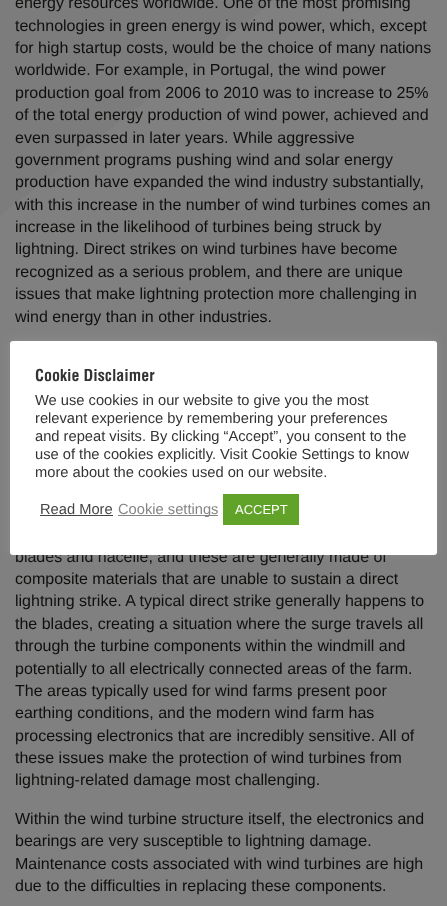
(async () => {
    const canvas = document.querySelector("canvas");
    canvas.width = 447;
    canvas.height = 906;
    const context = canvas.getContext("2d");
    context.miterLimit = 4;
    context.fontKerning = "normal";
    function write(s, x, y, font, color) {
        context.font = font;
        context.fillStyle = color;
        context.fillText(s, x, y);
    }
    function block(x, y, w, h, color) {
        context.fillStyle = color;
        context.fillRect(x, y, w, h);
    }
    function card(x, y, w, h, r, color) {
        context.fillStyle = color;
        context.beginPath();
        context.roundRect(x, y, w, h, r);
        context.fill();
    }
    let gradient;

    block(0, 0, 447, 906, "rgb(128, 128, 128)");
    gradient = context.createLinearGradient(83, -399, 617, 281);
    gradient.addColorStop(0, "rgb(124, 124, 124)");
    gradient.addColorStop(0.5, "rgb(124, 124, 124)");
    gradient.addColorStop(0.5, "rgb(128, 128, 128)");
    gradient.addColorStop(1, "rgb(128, 128, 128)");
    context.fillStyle = gradient;
    context.fillRect(0, 0, 274, 215);
    write("energy resources worldwide. One of the most promising", 15, 8, "16px Liberation Sans", "rgb(15, 15, 14)");
    write("technologies in green energy is wind power, which, except", 15, 31, "16px Liberation Sans", "rgb(15, 15, 14)");
    write("for high startup costs, would be the choice of many nations", 15, 53, "16px Liberation Sans", "rgb(15, 15, 14)");
    write("worldwide. For example, in Portugal, the wind power", 15, 75, "16px Liberation Sans", "rgb(15, 15, 14)");
    write("production goal from 2006 to 2010 was to increase to 25%", 15, 98, "16px Liberation Sans", "rgb(15, 15, 14)");
    write("of the total energy production of wind power, achieved and", 15, 120, "16px Liberation Sans", "rgb(15, 15, 14)");
    write("even surpassed in later years. While aggressive", 15, 143, "16px Liberation Sans", "rgb(15, 15, 14)");
    write("government programs pushing wind and solar energy", 15, 165, "16px Liberation Sans", "rgb(15, 15, 14)");
    write("production have expanded the wind industry substantially,", 15, 187, "16px Liberation Sans", "rgb(15, 15, 14)");
    write("with this increase in the number of wind turbines comes an", 15, 210, "16px Liberation Sans", "rgb(15, 15, 14)");
    write("increase in the likelihood of turbines being struck by", 15, 232, "16px Liberation Sans", "rgb(15, 15, 14)");
    write("lightning. Direct strikes on wind turbines have become", 15, 254, "16px Liberation Sans", "rgb(15, 15, 14)");
    write("recognized as a serious problem, and there are unique", 15, 277, "16px Liberation Sans", "rgb(15, 15, 14)");
    write("issues that make lightning protection more challenging in", 15, 299, "16px Liberation Sans", "rgb(15, 15, 14)");
    write("wind energy than in other industries.", 15, 322, "16px Liberation Sans", "rgb(15, 15, 14)");
    write("blades and nacelle, and these are generally made of", 15, 562, "16px Liberation Sans", "rgb(15, 15, 14)");
    write("composite materials that are unable to sustain a direct", 15, 584, "16px Liberation Sans", "rgb(15, 15, 14)");
    write("lightning strike. A typical direct strike generally happens to", 15, 606, "16px Liberation Sans", "rgb(15, 15, 14)");
    write("the blades, creating a situation where the surge travels all", 15, 629, "16px Liberation Sans", "rgb(15, 15, 14)");
    write("through the turbine components within the windmill and", 15, 651, "16px Liberation Sans", "rgb(15, 15, 14)");
    write("potentially to all electrically connected areas of the farm.", 15, 674, "16px Liberation Sans", "rgb(15, 15, 14)");
    write("The areas typically used for wind farms present poor", 15, 696, "16px Liberation Sans", "rgb(15, 15, 14)");
    write("earthing conditions, and the modern wind farm has", 15, 718, "16px Liberation Sans", "rgb(15, 15, 14)");
    write("processing electronics that are incredibly sensitive. All of", 15, 741, "16px Liberation Sans", "rgb(15, 15, 14)");
    write("these issues make the protection of wind turbines from", 15, 763, "16px Liberation Sans", "rgb(15, 15, 14)");
    write("lightning-related damage most challenging.", 15, 785, "16px Liberation Sans", "rgb(15, 15, 14)");
    write("Within the wind turbine structure itself, the electronics and", 15, 824, "16px Liberation Sans", "rgb(15, 15, 14)");
    write("bearings are very susceptible to lightning damage.", 15, 846, "16px Liberation Sans", "rgb(15, 15, 14)");
    write("Maintenance costs associated with wind turbines are high", 15, 869, "16px Liberation Sans", "rgb(15, 15, 14)");
    write("due to the difficulties in replacing these components.", 15, 891, "16px Liberation Sans", "rgb(15, 15, 14)");
    context.fillStyle = "rgba(172, 171, 171, 0.3)";
    context.filter = "blur(5px)";
    context.beginPath();
    context.roundRect(10, 340, 427, 214, 3);
    context.fill();
    context.filter = "none";
    card(10, 341, 427, 214, 3, "rgb(255, 255, 255)");
    write("Cookie Disclaimer", 35, 381, "bold 16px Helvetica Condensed", "rgb(51, 51, 51)");
    write("We use cookies in our website to give you the most", 35, 405, "14.7px Liberation Sans", "rgb(51, 51, 51)");
    write("relevant experience by remembering your preferences", 35, 423, "14.7px Liberation Sans", "rgb(51, 51, 51)");
    write("and repeat visits. By clicking “Accept”, you consent to the", 35, 441, "14.7px Liberation Sans", "rgb(51, 51, 51)");
    write("use of the cookies explicitly. Visit Cookie Settings to know", 35, 459, "14.7px Liberation Sans", "rgb(51, 51, 51)");
    write("more about the cookies used on our website.", 35, 477, "14.7px Liberation Sans", "rgb(51, 51, 51)");
    write("Read More", 40, 514, "14.7px Liberation Sans", "rgb(68, 68, 68)");
    block(40, 515, 73, 1, "rgb(68, 68, 68)");
    block(118, 515, 100, 1, "rgb(132, 132, 132)");
    write("Cookie settings", 118, 514, "14.7px Liberation Sans", "rgb(132, 132, 132)");
    block(223, 494, 76, 31, "rgb(97, 162, 41)");
    write("ACCEPT", 235, 514, "13px Liberation Sans", "rgb(255, 255, 255)");
})();
